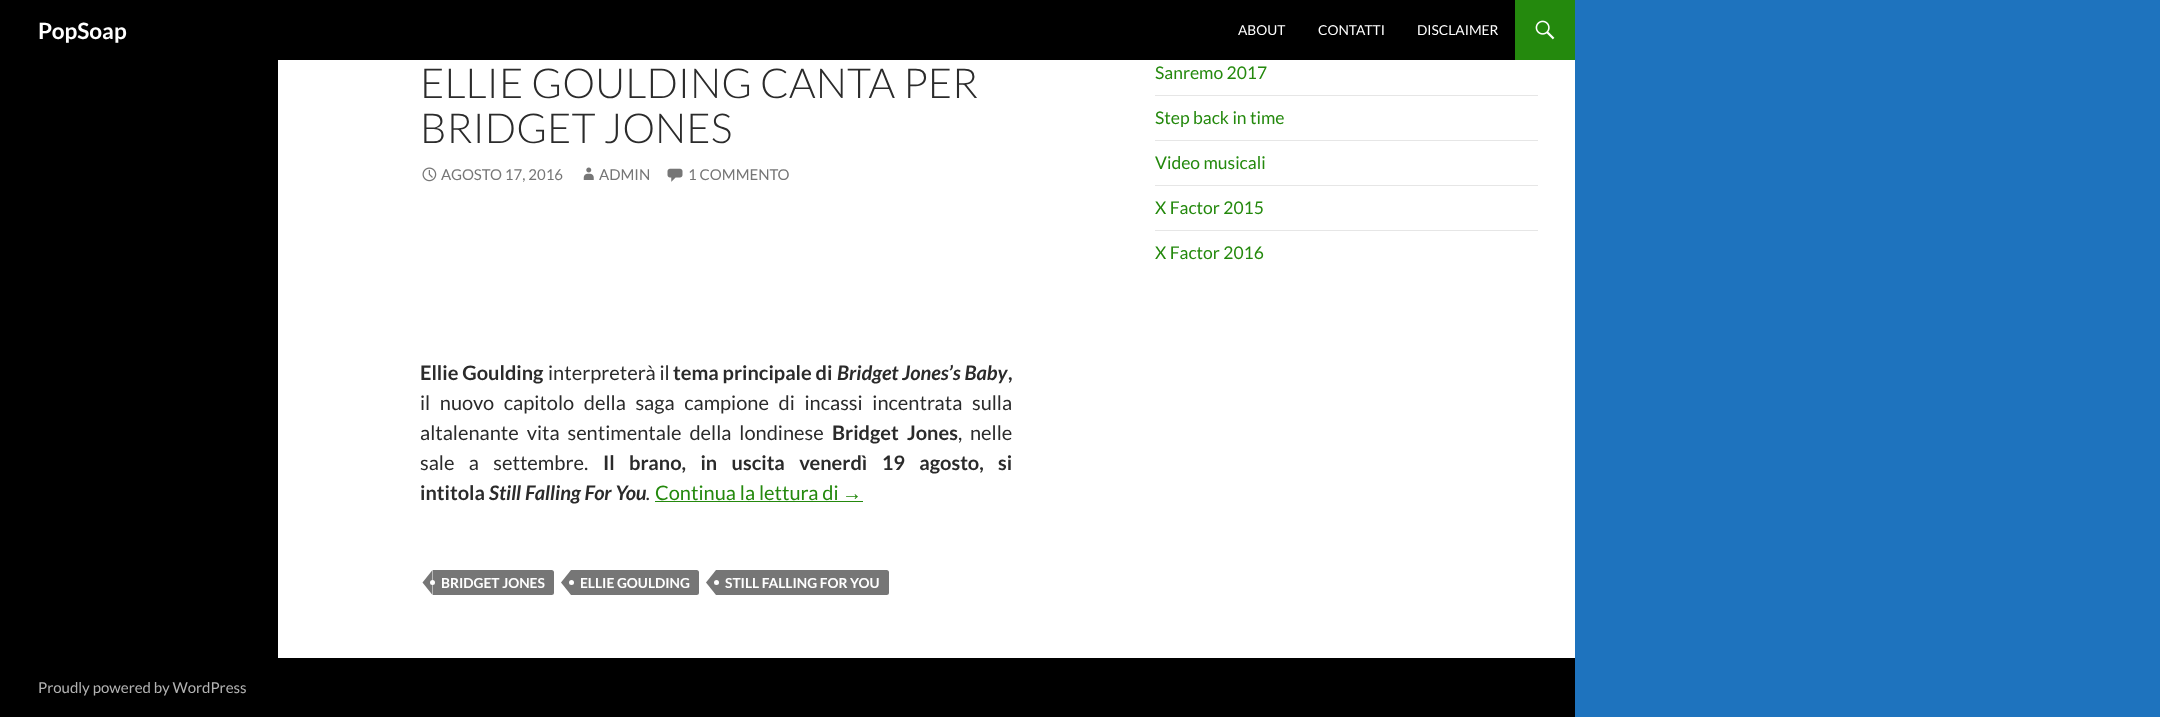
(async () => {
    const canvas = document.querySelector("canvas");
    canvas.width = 2160;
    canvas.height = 717;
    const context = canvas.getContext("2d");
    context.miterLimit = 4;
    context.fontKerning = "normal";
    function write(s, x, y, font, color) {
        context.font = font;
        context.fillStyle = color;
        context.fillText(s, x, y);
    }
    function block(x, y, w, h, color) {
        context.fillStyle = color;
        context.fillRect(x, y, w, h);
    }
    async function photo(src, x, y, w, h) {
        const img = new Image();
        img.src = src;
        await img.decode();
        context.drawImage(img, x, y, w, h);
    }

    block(0, 0, 2160, 717, "rgb(30, 115, 190)");
    block(278, 60, 1297, 598, "rgb(255, 255, 255)");
    block(0, 0, 1515, 60, "rgb(0, 0, 0)");
    write("PopSoap", 38, 39, "bold 22.5px Lato", "rgb(255, 255, 255)");
    write("ABOUT", 1238, 35, "13.75px Lato", "rgb(255, 255, 255)");
    write("CONTATTI", 1318, 35, "13.75px Lato", "rgb(255, 255, 255)");
    write("DISCLAIMER", 1417, 35, "13.75px Lato", "rgb(255, 255, 255)");
    block(1515, 0, 60, 60, "rgb(36, 137, 13)");
    await photo("media/1.png", 1535, 20, 20, 20);
    block(0, 60, 278, 598, "rgb(0, 0, 0)");
    write("ELLIE GOULDING CANTA PER", 420, 98, "300 41.25px Lato", "rgb(43, 43, 43)");
    write("BRIDGET JONES", 420, 143, "300 41.25px Lato", "rgb(43, 43, 43)");
    await photo("media/2.png", 422, 167, 15, 15);
    write("AGOSTO 17, 2016", 441, 180, "15px Lato", "rgb(118, 118, 118)");
    await photo("media/3.png", 583, 167, 11, 13);
    write("ADMIN", 599, 180, "15px Lato", "rgb(118, 118, 118)");
    await photo("media/4.png", 667, 168, 16, 14);
    write("1 COMMENTO", 688, 180, "15px Lato", "rgb(118, 118, 118)");
    write("Ellie Goulding", 420, 380, "bold 20px Lato", "rgb(43, 43, 43)");
    write("interpreterà il", 548, 380, "20px Lato", "rgb(43, 43, 43)");
    write("tema principale di", 673, 380, "bold 20px Lato", "rgb(43, 43, 43)");
    write("Bridget Jones’s Baby", 837, 380, "italic bold 20px Lato", "rgb(43, 43, 43)");
    write(",", 1008, 380, "bold 20px Lato", "rgb(43, 43, 43)");
    context.wordSpacing = "5.75px";
    write("il nuovo capitolo della saga campione di incassi incentrata sulla", 420, 410, "20px Lato", "rgb(43, 43, 43)");
    context.wordSpacing = "4px";
    write("altalenante vita sentimentale della londinese", 420, 440, "20px Lato", "rgb(43, 43, 43)");
    context.wordSpacing = "0px";
    write("Bridget", 832, 440, "bold 20px Lato", "rgb(43, 43, 43)");
    write("Jones", 907, 440, "bold 20px Lato", "rgb(43, 43, 43)");
    write(",", 958, 440, "20px Lato", "rgb(43, 43, 43)");
    write("nelle", 970, 440, "20px Lato", "rgb(43, 43, 43)");
    context.wordSpacing = "10.5px";
    write("sale a settembre.", 420, 470, "20px Lato", "rgb(43, 43, 43)");
    write("Il brano, in uscita venerdì 19 agosto, si", 603, 470, "bold 20px Lato", "rgb(43, 43, 43)");
    context.wordSpacing = "0px";
    write("intitola", 420, 500, "bold 20px Lato", "rgb(43, 43, 43)");
    write("Still Falling For You", 489, 500, "italic bold 20px Lato", "rgb(43, 43, 43)");
    write(".", 646, 500, "italic 20px Lato", "rgb(43, 43, 43)");
    write("Continua la lettura di", 655, 500, "20px Lato", "rgb(36, 137, 13)");
    write("→", 842, 500, "20px Liberation Sans", "rgb(36, 137, 13)");
    block(655, 501, 208, 1, "rgb(36, 137, 13)");
    context.fillStyle = "rgb(118, 118, 118)";
    context.beginPath();
    context.roundRect(433, 570, 121, 25, [0, 2.5, 2.5, 0]);
    context.fill();
    context.beginPath();
    context.moveTo(432.5, 570);
    context.lineTo(432.5, 595);
    context.lineTo(422.5, 582.5);
    context.closePath();
    context.fill();
    write("BRIDGET JONES", 441, 588, "bold 13.75px Lato", "rgb(255, 255, 255)");
    context.beginPath();
    context.arc(432.5, 582.5, 2.5, 0, Math.PI * 2);
    context.fill();
    context.fillStyle = "rgb(118, 118, 118)";
    context.beginPath();
    context.roundRect(571, 570, 128, 25, [0, 2.5, 2.5, 0]);
    context.fill();
    context.beginPath();
    context.moveTo(571, 570);
    context.lineTo(571, 595);
    context.lineTo(561, 582.5);
    context.closePath();
    context.fill();
    context.fillStyle = "rgb(255, 255, 255)";
    context.beginPath();
    context.arc(571.5, 582.5, 2.5, 0, Math.PI * 2);
    context.fill();
    write("ELLIE GOULDING", 580, 588, "bold 13.75px Lato", "rgb(255, 255, 255)");
    context.fillStyle = "rgb(118, 118, 118)";
    context.beginPath();
    context.roundRect(716, 570, 173, 25, [0, 2.5, 2.5, 0]);
    context.fill();
    context.beginPath();
    context.moveTo(716, 570);
    context.lineTo(716, 595);
    context.lineTo(706, 582.5);
    context.closePath();
    context.fill();
    context.fillStyle = "rgb(255, 255, 255)";
    context.beginPath();
    context.arc(716.5, 582.5, 2.5, 0, Math.PI * 2);
    context.fill();
    write("STILL FALLING FOR YOU", 725, 588, "bold 13.75px Lato", "rgb(255, 255, 255)");
    write("Sanremo 2017", 1155, 79, "17.5px Lato", "rgb(36, 137, 13)");
    block(1155, 95, 383, 1, "rgb(230, 230, 230)");
    write("Step back in time", 1155, 124, "17.5px Lato", "rgb(36, 137, 13)");
    block(1155, 140, 383, 1, "rgb(230, 230, 230)");
    write("Video musicali", 1155, 169, "17.5px Lato", "rgb(36, 137, 13)");
    block(1155, 185, 383, 1, "rgb(230, 230, 230)");
    write("X Factor 2015", 1155, 214, "17.5px Lato", "rgb(36, 137, 13)");
    block(1155, 230, 383, 1, "rgb(230, 230, 230)");
    write("X Factor 2016", 1155, 259, "17.5px Lato", "rgb(36, 137, 13)");
    block(0, 658, 1575, 59, "rgb(0, 0, 0)");
    write("Proudly powered by WordPress", 38, 693, "15px Lato", "rgb(179, 179, 179)");
})();
